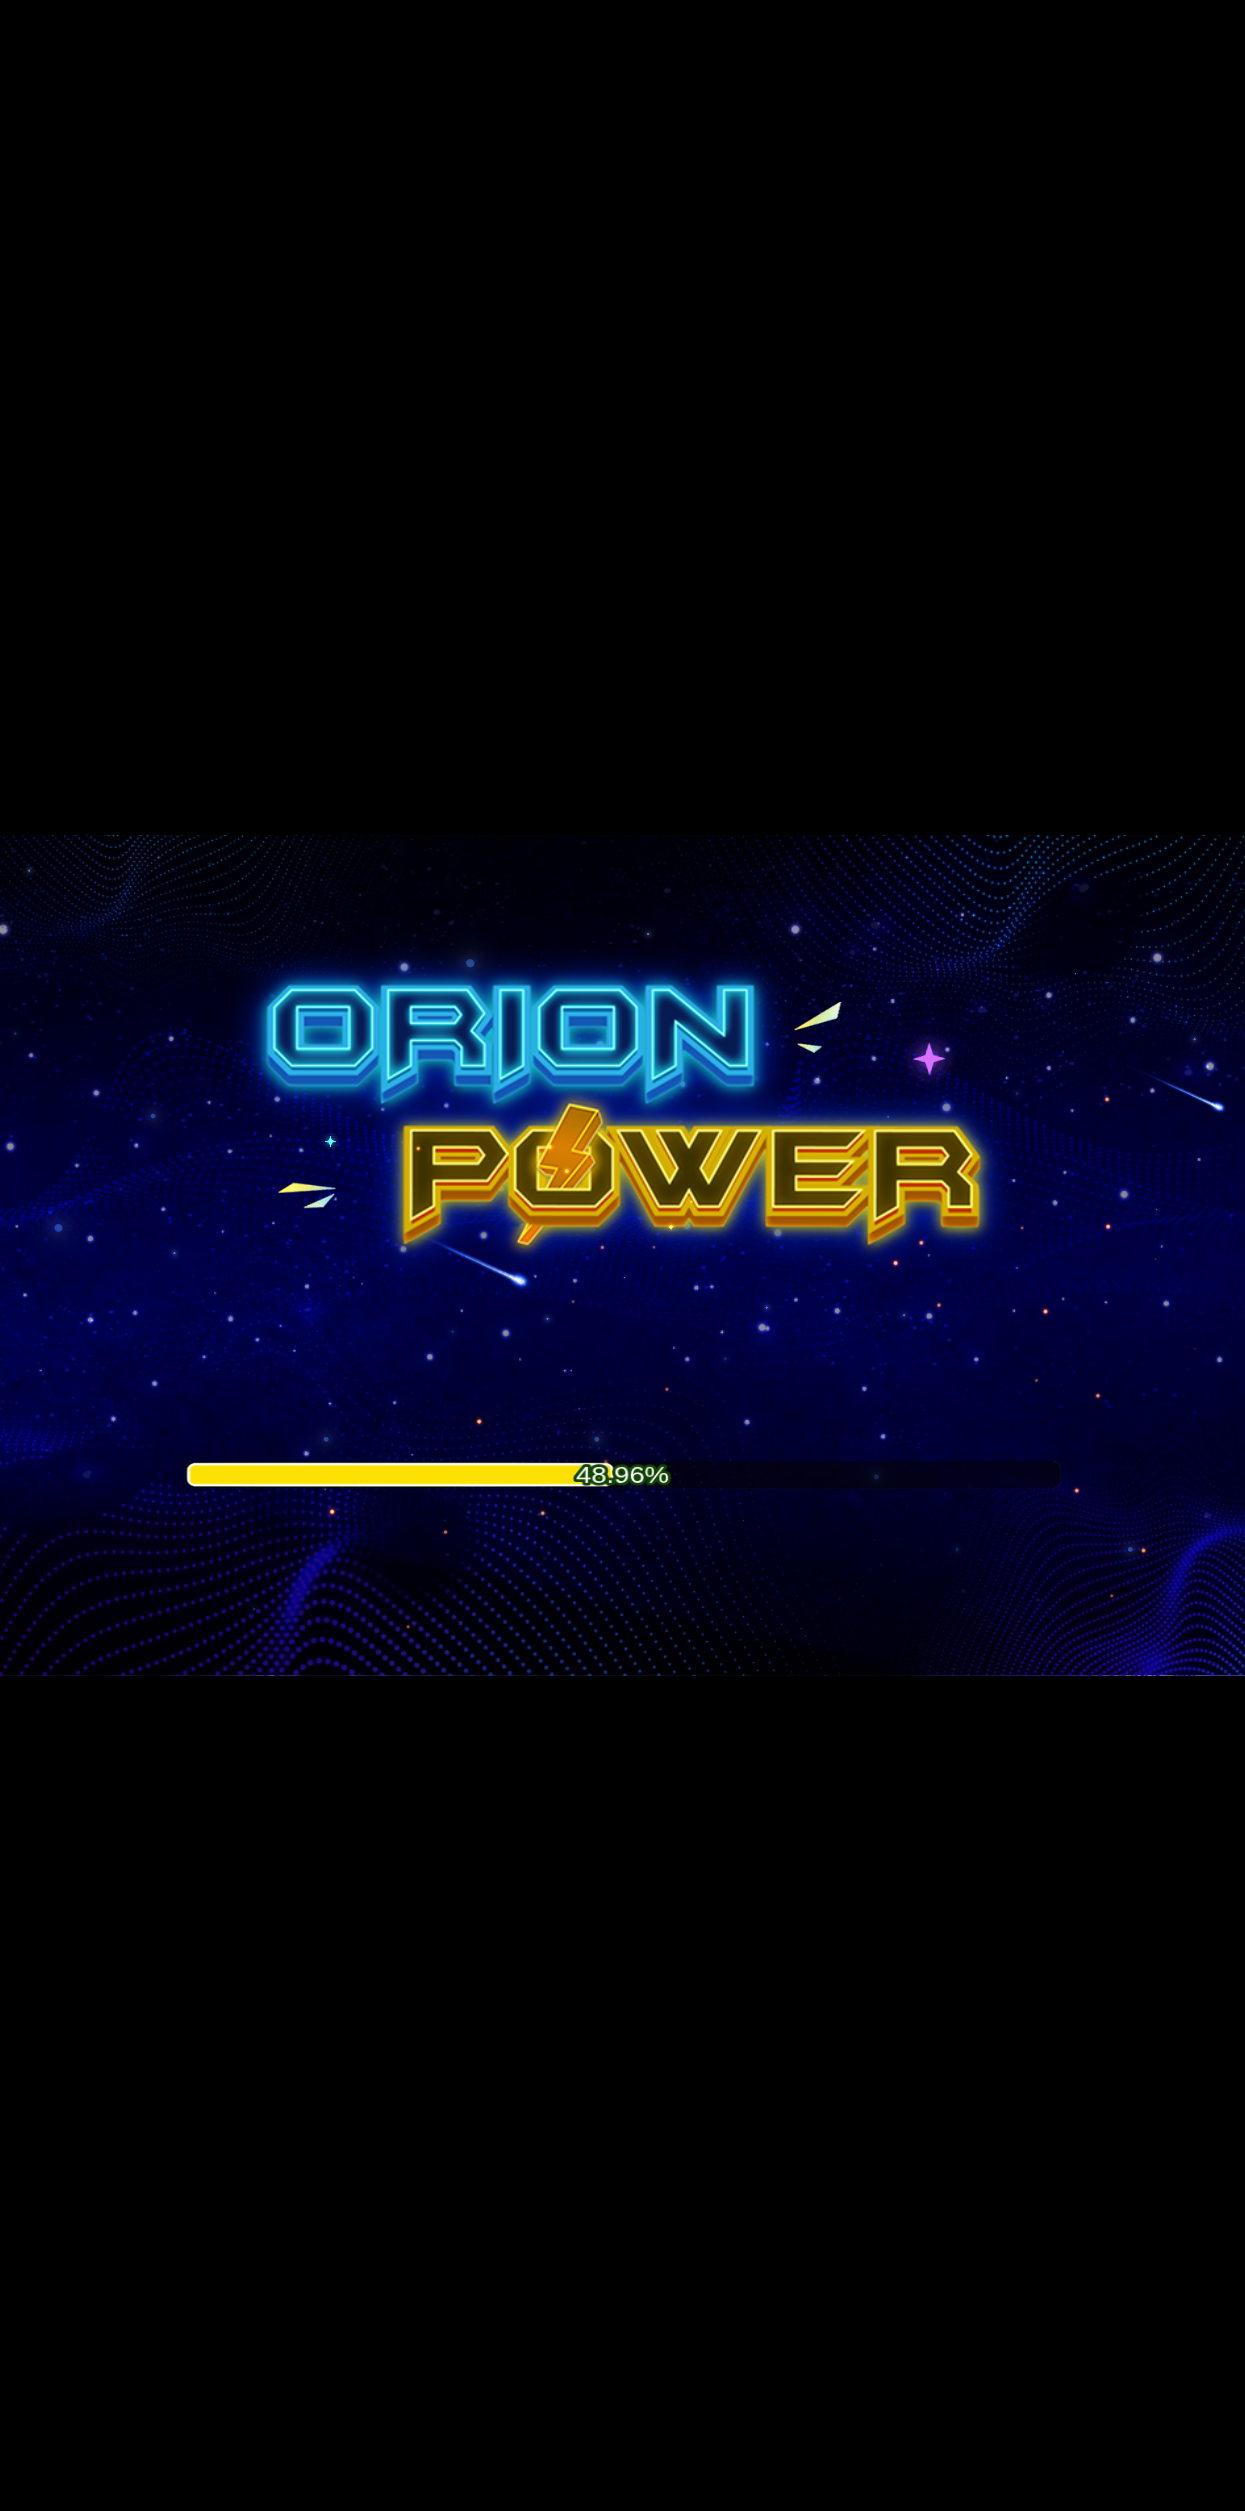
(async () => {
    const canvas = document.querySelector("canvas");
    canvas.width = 1245;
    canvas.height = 2511;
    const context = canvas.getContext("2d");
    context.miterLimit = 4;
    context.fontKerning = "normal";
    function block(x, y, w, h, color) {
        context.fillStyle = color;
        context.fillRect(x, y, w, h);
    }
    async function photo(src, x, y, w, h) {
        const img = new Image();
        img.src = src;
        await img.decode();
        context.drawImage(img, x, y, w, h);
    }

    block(0, 0, 1245, 2511, "rgb(0, 0, 0)");
    await photo("media/1.png", 0, 835, 1245, 841);
})();
